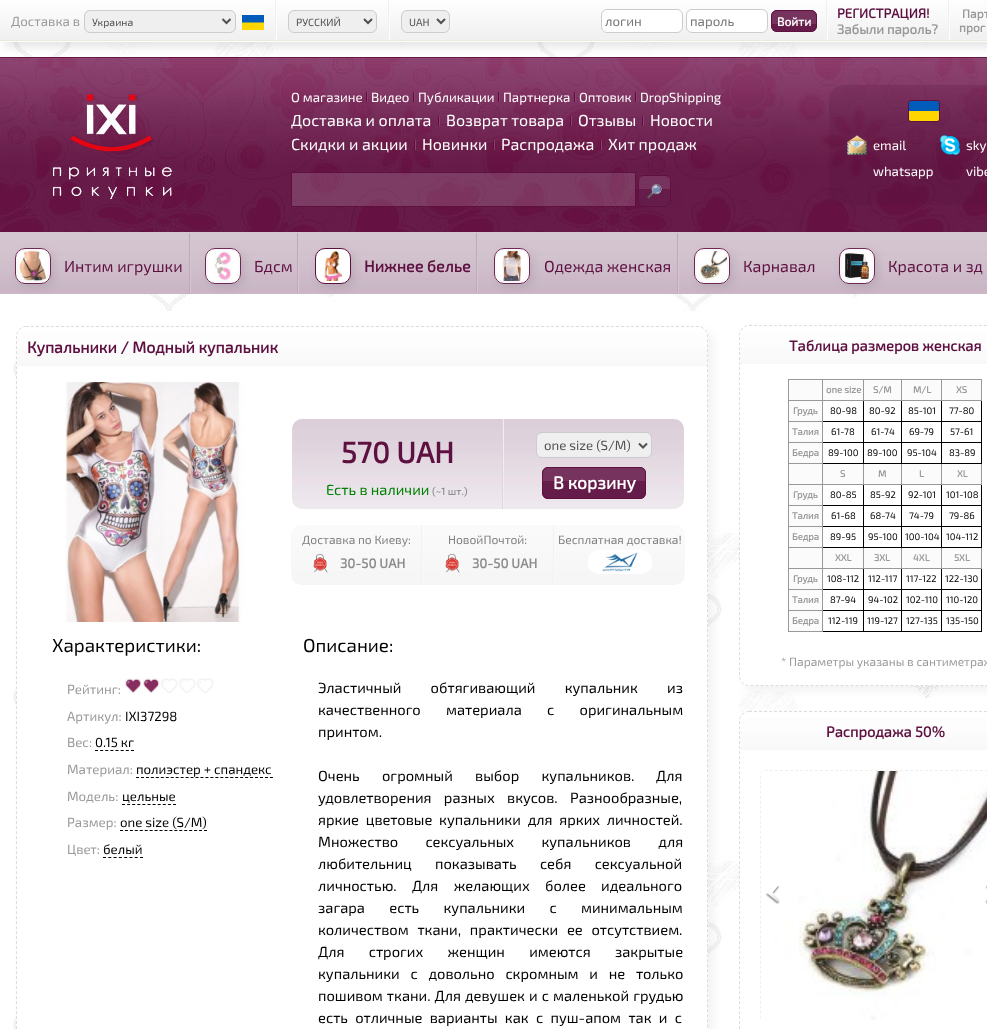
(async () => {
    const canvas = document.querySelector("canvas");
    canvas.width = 987;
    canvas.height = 1029;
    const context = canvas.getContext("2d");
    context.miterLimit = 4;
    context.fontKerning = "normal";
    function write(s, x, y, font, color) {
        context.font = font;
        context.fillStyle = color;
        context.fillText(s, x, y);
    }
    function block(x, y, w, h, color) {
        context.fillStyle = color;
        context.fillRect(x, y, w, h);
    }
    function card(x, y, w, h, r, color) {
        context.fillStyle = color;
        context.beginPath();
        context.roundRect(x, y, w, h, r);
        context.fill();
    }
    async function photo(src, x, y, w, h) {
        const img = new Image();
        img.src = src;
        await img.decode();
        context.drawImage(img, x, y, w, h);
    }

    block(0, 0, 987, 1029, "rgb(255, 255, 255)");
    await photo("media/1.png", 13, 42, 974, 987);
    context.fillStyle = "rgba(0, 0, 0, 0.1)";
    context.filter = "blur(4px)";
    context.beginPath();
    context.rect(5, 5, 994, 42);
    context.fill();
    context.filter = "none";
    await photo("media/2.png", 0, 0, 987, 42);
    write("Доставка в", 11, 26, "13.25px 'Exo 2'", "rgb(153, 153, 153)");
    context.fillStyle = "rgb(239, 239, 239)";
    context.beginPath();
    context.roundRect(84.5, 10.5, 151, 22, 5.5);
    context.fill();
    context.strokeStyle = "rgb(204, 204, 204)";
    context.stroke();
    context.beginPath();
    context.moveTo(222.5, 19);
    context.lineTo(226.5, 23);
    context.lineTo(230.5, 19);
    context.strokeStyle = "rgb(80, 80, 80)";
    context.lineWidth = 2;
    context.stroke();
    write("Украина", 92, 26, "10.5px 'Exo 2'", "rgb(80, 80, 80)");
    await photo("media/3.png", 242, 15, 22, 15);
    await photo("media/4.png", 275, 1, 2, 39);
    context.fillStyle = "rgb(239, 239, 239)";
    context.beginPath();
    context.roundRect(288.5, 10.5, 88, 22, 5.5);
    context.fill();
    context.strokeStyle = "rgb(204, 204, 204)";
    context.lineWidth = 1;
    context.stroke();
    context.beginPath();
    context.moveTo(364, 19);
    context.lineTo(368, 23);
    context.lineTo(372, 19);
    context.strokeStyle = "rgb(80, 80, 80)";
    context.lineWidth = 2;
    context.stroke();
    write("РУССКИЙ", 296, 26, "10.5px 'Exo 2'", "rgb(80, 80, 80)");
    await photo("media/4.png", 388, 1, 2, 39);
    context.fillStyle = "rgb(239, 239, 239)";
    context.beginPath();
    context.roundRect(401.5, 10.5, 48, 22, 5.5);
    context.fill();
    context.strokeStyle = "rgb(204, 204, 204)";
    context.lineWidth = 1;
    context.stroke();
    context.beginPath();
    context.moveTo(437, 19);
    context.lineTo(441, 23);
    context.lineTo(445, 19);
    context.strokeStyle = "rgb(80, 80, 80)";
    context.lineWidth = 2;
    context.stroke();
    write("UAH", 409, 26, "10.5px 'Exo 2'", "rgb(80, 80, 80)");
    context.fillStyle = "rgb(255, 255, 255)";
    context.beginPath();
    context.roundRect(601.5, 9.5, 81, 23, 5.5);
    context.fill();
    context.strokeStyle = "rgb(204, 204, 204)";
    context.lineWidth = 1;
    context.stroke();
    write("логин", 605, 26, "13.25px 'Exo 2'", "rgb(117, 117, 117)");
    context.fillStyle = "rgb(255, 255, 255)";
    context.beginPath();
    context.roundRect(686.5, 9.5, 81, 23, 5.5);
    context.fill();
    context.stroke();
    write("пароль", 690, 26, "13.25px 'Exo 2'", "rgb(117, 117, 117)");
    await photo("media/5.png", 771, 10, 46, 22);
    context.beginPath();
    context.roundRect(771.5, 10.5, 45, 21, 5.5);
    context.strokeStyle = "rgb(94, 17, 64)";
    context.stroke();
    write("Войти", 777, 26, "bold 12px 'Exo 2'", "rgb(255, 255, 255)");
    await photo("media/4.png", 826, 1, 2, 39);
    write("РЕГИСТРАЦИЯ!", 837, 18, "bold 13.25px 'Exo 2'", "rgb(94, 17, 64)");
    write("Забыли пароль?", 837, 34, "bold 13.25px 'Exo 2'", "rgb(153, 153, 153)");
    await photo("media/4.png", 948, 1, 2, 39);
    write("Парт", 962, 18, "bold 12px 'Exo 2'", "rgb(153, 153, 153)");
    write("прог", 959, 32, "bold 12px 'Exo 2'", "rgb(153, 153, 153)");
    await photo("media/6.png", 0, 57, 987, 175);
    await photo("media/7.png", 37, 68, 150, 150);
    write("О магазине", 291, 102, "13.25px 'Exo 2'", "rgb(255, 255, 255)");
    await photo("media/8.png", 366, 92, 2, 10);
    write("Видео", 371, 102, "13.25px 'Exo 2'", "rgb(255, 255, 255)");
    await photo("media/8.png", 413, 92, 2, 10);
    write("Публикации", 418, 102, "13.25px 'Exo 2'", "rgb(255, 255, 255)");
    await photo("media/8.png", 498, 92, 2, 10);
    write("Партнерка", 503, 102, "13.25px 'Exo 2'", "rgb(255, 255, 255)");
    await photo("media/8.png", 574, 92, 2, 10);
    write("Оптовик", 579, 102, "13.25px 'Exo 2'", "rgb(255, 255, 255)");
    await photo("media/8.png", 635, 92, 2, 10);
    write("DropShipping", 640, 102, "13.25px 'Exo 2'", "rgb(255, 255, 255)");
    write("Доставка и оплата", 291, 126, "16px 'Exo 2'", "rgb(255, 255, 255)");
    await photo("media/8.png", 438, 116, 2, 10);
    write("Возврат товара", 446, 126, "16px 'Exo 2'", "rgb(255, 255, 255)");
    await photo("media/8.png", 570, 116, 2, 10);
    write("Отзывы", 578, 126, "16px 'Exo 2'", "rgb(255, 255, 255)");
    await photo("media/8.png", 642, 116, 2, 10);
    write("Новости", 650, 126, "16px 'Exo 2'", "rgb(255, 255, 255)");
    write("Скидки и акции", 291, 150, "16px 'Exo 2'", "rgb(255, 255, 255)");
    await photo("media/8.png", 414, 140, 2, 10);
    write("Новинки", 422, 150, "16px 'Exo 2'", "rgb(255, 255, 255)");
    await photo("media/8.png", 493, 140, 2, 10);
    write("Распродажа", 501, 150, "16px 'Exo 2'", "rgb(255, 255, 255)");
    await photo("media/8.png", 600, 140, 2, 10);
    write("Хит продаж", 608, 150, "16px 'Exo 2'", "rgb(255, 255, 255)");
    context.fillStyle = "rgba(255, 255, 255, 0.15)";
    context.beginPath();
    context.rect(291.5, 172.5, 344, 34);
    context.fill();
    context.stroke();
    await photo("media/9.png", 638, 175, 33, 32);
    context.beginPath();
    context.roundRect(638.5, 175.5, 32, 31, 5.5);
    context.stroke();
    write("🔎", 646, 196, "bold 13.25px Noto Color Emoji", "rgb(255, 255, 255)");
    card(829, 85, 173, 120, 15, "rgba(86, 21, 61, 0.2)");
    context.beginPath();
    context.roundRect(908.5, 100.5, 31, 21, 2.5);
    context.stroke();
    await photo("media/10.png", 909, 101, 30, 20);
    await photo("media/11.png", 847, 135, 20, 20);
    write("email", 873, 150, "13.25px 'Exo 2'", "rgb(255, 255, 255)");
    await photo("media/12.png", 940, 135, 20, 20);
    write("sky", 966, 150, "13.25px 'Exo 2'", "rgb(255, 255, 255)");
    write("whatsapp", 873, 176, "13.25px 'Exo 2'", "rgb(255, 255, 255)");
    write("vibe", 966, 176, "13.25px 'Exo 2'", "rgb(255, 255, 255)");
    await photo("media/13.png", 0, 232, 987, 62);
    context.save();
    context.beginPath();
    context.moveTo(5, 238);
    context.lineTo(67, 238);
    context.lineTo(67, 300);
    context.lineTo(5, 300);
    context.closePath();
    context.moveTo(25, 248);
    context.lineTo(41, 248);
    context.bezierCurveTo(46.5, 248, 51, 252.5, 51, 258);
    context.lineTo(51, 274);
    context.bezierCurveTo(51, 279.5, 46.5, 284, 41, 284);
    context.lineTo(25, 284);
    context.bezierCurveTo(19.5, 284, 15, 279.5, 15, 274);
    context.lineTo(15, 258);
    context.bezierCurveTo(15, 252.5, 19.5, 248, 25, 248);
    context.closePath();
    context.clip("evenodd");
    context.fillStyle = "rgba(0, 0, 0, 0.09)";
    context.filter = "blur(4px)";
    context.beginPath();
    context.roundRect(18, 251, 36, 36, 10);
    context.fill();
    context.filter = "none";
    context.restore();
    card(15, 248, 36, 36, 10, "rgba(255, 255, 255, 0.9)");
    context.beginPath();
    context.roundRect(15.5, 248.5, 35, 35, 9.5);
    context.strokeStyle = "rgba(94, 17, 64, 0.9)";
    context.stroke();
    await photo("media/14.png", 18, 251, 30, 30);
    write("Интим игрушки", 64, 272, "16px 'Exo 2'", "rgb(94, 17, 64)");
    await photo("media/15.png", 189, 233, 2, 60);
    context.save();
    context.beginPath();
    context.moveTo(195, 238);
    context.lineTo(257, 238);
    context.lineTo(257, 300);
    context.lineTo(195, 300);
    context.closePath();
    context.moveTo(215, 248);
    context.lineTo(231, 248);
    context.bezierCurveTo(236.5, 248, 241, 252.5, 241, 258);
    context.lineTo(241, 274);
    context.bezierCurveTo(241, 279.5, 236.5, 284, 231, 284);
    context.lineTo(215, 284);
    context.bezierCurveTo(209.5, 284, 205, 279.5, 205, 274);
    context.lineTo(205, 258);
    context.bezierCurveTo(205, 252.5, 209.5, 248, 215, 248);
    context.closePath();
    context.clip("evenodd");
    context.fillStyle = "rgba(0, 0, 0, 0.09)";
    context.filter = "blur(4px)";
    context.beginPath();
    context.roundRect(208, 251, 36, 36, 10);
    context.fill();
    context.filter = "none";
    context.restore();
    card(205, 248, 36, 36, 10, "rgba(255, 255, 255, 0.9)");
    context.beginPath();
    context.roundRect(205.5, 248.5, 35, 35, 9.5);
    context.stroke();
    await photo("media/16.png", 208, 251, 30, 30);
    write("Бдсм", 254, 272, "16px 'Exo 2'", "rgb(94, 17, 64)");
    await photo("media/15.png", 297, 233, 2, 60);
    context.fillStyle = "rgba(0, 0, 0, 0.1)";
    context.filter = "blur(4px)";
    context.beginPath();
    context.roundRect(318, 251, 36, 36, 10);
    context.fill();
    context.filter = "none";
    context.fillStyle = "rgb(255, 255, 255)";
    context.beginPath();
    context.roundRect(315.5, 248.5, 35, 35, 9.5);
    context.fill();
    context.strokeStyle = "rgb(94, 17, 64)";
    context.stroke();
    await photo("media/17.png", 324, 251, 18, 30);
    write("Нижнее белье", 364, 272, "bold 16px 'Exo 2'", "rgb(94, 17, 64)");
    await photo("media/15.png", 476, 233, 2, 60);
    context.save();
    context.beginPath();
    context.moveTo(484, 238);
    context.lineTo(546, 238);
    context.lineTo(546, 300);
    context.lineTo(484, 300);
    context.closePath();
    context.moveTo(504, 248);
    context.lineTo(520, 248);
    context.bezierCurveTo(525.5, 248, 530, 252.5, 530, 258);
    context.lineTo(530, 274);
    context.bezierCurveTo(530, 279.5, 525.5, 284, 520, 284);
    context.lineTo(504, 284);
    context.bezierCurveTo(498.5, 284, 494, 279.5, 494, 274);
    context.lineTo(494, 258);
    context.bezierCurveTo(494, 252.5, 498.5, 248, 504, 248);
    context.closePath();
    context.clip("evenodd");
    context.fillStyle = "rgba(0, 0, 0, 0.09)";
    context.filter = "blur(4px)";
    context.beginPath();
    context.roundRect(497, 251, 36, 36, 10);
    context.fill();
    context.filter = "none";
    context.restore();
    card(494, 248, 36, 36, 10, "rgba(255, 255, 255, 0.9)");
    context.beginPath();
    context.roundRect(494.5, 248.5, 35, 35, 9.5);
    context.strokeStyle = "rgba(94, 17, 64, 0.9)";
    context.stroke();
    await photo("media/18.png", 497, 251, 30, 30);
    write("Одежда женская", 544, 272, "16px 'Exo 2'", "rgb(94, 17, 64)");
    await photo("media/15.png", 677, 233, 2, 60);
    context.save();
    context.beginPath();
    context.moveTo(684, 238);
    context.lineTo(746, 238);
    context.lineTo(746, 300);
    context.lineTo(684, 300);
    context.closePath();
    context.moveTo(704, 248);
    context.lineTo(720, 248);
    context.bezierCurveTo(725.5, 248, 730, 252.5, 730, 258);
    context.lineTo(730, 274);
    context.bezierCurveTo(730, 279.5, 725.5, 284, 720, 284);
    context.lineTo(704, 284);
    context.bezierCurveTo(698.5, 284, 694, 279.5, 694, 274);
    context.lineTo(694, 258);
    context.bezierCurveTo(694, 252.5, 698.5, 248, 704, 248);
    context.closePath();
    context.clip("evenodd");
    context.fillStyle = "rgba(0, 0, 0, 0.09)";
    context.filter = "blur(4px)";
    context.beginPath();
    context.roundRect(697, 251, 36, 36, 10);
    context.fill();
    context.filter = "none";
    context.restore();
    card(694, 248, 36, 36, 10, "rgba(255, 255, 255, 0.9)");
    context.beginPath();
    context.roundRect(694.5, 248.5, 35, 35, 9.5);
    context.stroke();
    await photo("media/19.png", 697, 251, 30, 30);
    write("Карнавал", 743, 272, "16px 'Exo 2'", "rgb(94, 17, 64)");
    context.save();
    context.beginPath();
    context.moveTo(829, 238);
    context.lineTo(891, 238);
    context.lineTo(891, 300);
    context.lineTo(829, 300);
    context.closePath();
    context.moveTo(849, 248);
    context.lineTo(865, 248);
    context.bezierCurveTo(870.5, 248, 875, 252.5, 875, 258);
    context.lineTo(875, 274);
    context.bezierCurveTo(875, 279.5, 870.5, 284, 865, 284);
    context.lineTo(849, 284);
    context.bezierCurveTo(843.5, 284, 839, 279.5, 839, 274);
    context.lineTo(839, 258);
    context.bezierCurveTo(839, 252.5, 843.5, 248, 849, 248);
    context.closePath();
    context.clip("evenodd");
    context.fillStyle = "rgba(0, 0, 0, 0.09)";
    context.filter = "blur(4px)";
    context.beginPath();
    context.roundRect(842, 251, 36, 36, 10);
    context.fill();
    context.filter = "none";
    context.restore();
    card(839, 248, 36, 36, 10, "rgba(255, 255, 255, 0.9)");
    context.beginPath();
    context.roundRect(839.5, 248.5, 35, 35, 9.5);
    context.stroke();
    await photo("media/20.png", 842, 251, 30, 30);
    write("Красота и зд", 888, 272, "16px 'Exo 2'", "rgb(94, 17, 64)");
    context.fillStyle = "rgba(0, 0, 0, 0.05)";
    context.filter = "blur(4px)";
    context.beginPath();
    context.roundRect(21, 331, 692, 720, 10);
    context.fill();
    context.filter = "none";
    card(16, 326, 692, 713, 10, "rgb(255, 255, 255)");
    context.beginPath();
    context.moveTo(26, 326.5);
    context.lineTo(698, 326.5);
    context.bezierCurveTo(703, 326.5, 707.5, 331, 707.5, 336);
    context.lineTo(707.5, 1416);
    context.bezierCurveTo(707.5, 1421, 703, 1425.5, 698, 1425.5);
    context.lineTo(26, 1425.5);
    context.bezierCurveTo(21, 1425.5, 16.5, 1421, 16.5, 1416);
    context.lineTo(16.5, 336);
    context.bezierCurveTo(16.5, 331, 21, 326.5, 26, 326.5);
    context.closePath();
    context.strokeStyle = "rgb(221, 221, 221)";
    context.setLineDash([3, 2]);
    context.stroke();
    await photo("media/21.png", 17, 327, 690, 39);
    write("Купальники / Модный купальник", 27, 353, "bold 16px 'Exo 2'", "rgb(94, 17, 64)");
    await photo("media/22.png", 65, 382, 179, 240);
    await photo("media/23.png", 292, 419, 210, 90);
    write("570 UAH", 341, 463, "bold 29.5px 'Exo 2'", "rgb(94, 17, 64)");
    write("Есть в наличии", 326, 495, "14.7px 'Exo 2'", "rgb(0, 128, 0)");
    write("(~1 шт.)", 432, 495, "10.5px 'Exo 2'", "rgb(128, 128, 128)");
    await photo("media/24.png", 502, 419, 2, 90);
    await photo("media/25.png", 504, 419, 180, 90);
    context.fillStyle = "rgb(239, 239, 239)";
    context.beginPath();
    context.roundRect(536.5, 432.5, 115, 25, 5.5);
    context.fill();
    context.strokeStyle = "rgb(204, 204, 204)";
    context.setLineDash([]);
    context.stroke();
    context.beginPath();
    context.moveTo(639, 443.5);
    context.lineTo(643, 447.5);
    context.lineTo(647, 443.5);
    context.strokeStyle = "rgb(80, 80, 80)";
    context.lineWidth = 2;
    context.stroke();
    write("one size (S/M)", 544, 450, "13.25px 'Exo 2'", "rgb(80, 80, 80)");
    await photo("media/26.png", 542, 467, 104, 32);
    context.beginPath();
    context.roundRect(542.5, 467.5, 103, 31, 5.5);
    context.strokeStyle = "rgb(94, 17, 64)";
    context.lineWidth = 1;
    context.stroke();
    write("В корзину", 553, 489, "bold 17.5px 'Exo 2'", "rgb(255, 255, 255)");
    await photo("media/27.png", 291, 525, 130, 60);
    write("Доставка по Киеву:", 302, 544, "12px 'Exo 2'", "rgb(128, 128, 128)");
    await photo("media/28.png", 313, 553, 15, 20);
    write("30-50 UAH", 340, 568, "bold 13.25px 'Exo 2'", "rgb(140, 140, 140)");
    await photo("media/29.png", 421, 525, 2, 60);
    await photo("media/30.png", 423, 525, 130, 60);
    write("НовойПочтой:", 448, 544, "12px 'Exo 2'", "rgb(128, 128, 128)");
    await photo("media/28.png", 445, 553, 15, 20);
    write("30-50 UAH", 472, 568, "bold 13.25px 'Exo 2'", "rgb(140, 140, 140)");
    await photo("media/29.png", 553, 525, 2, 60);
    await photo("media/31.png", 555, 525, 130, 60);
    write("Бесплатная доставка!", 558, 544, "12px 'Exo 2'", "rgb(128, 128, 128)");
    card(588, 550, 64, 24, 10, "rgba(255, 255, 255, 0.9)");
    await photo("media/32.png", 602, 552, 36, 20);
    write("Характеристики:", 52, 652, "18.75px 'Exo 2'", "rgb(0, 0, 0)");
    write("Описание:", 303, 652, "18.75px 'Exo 2'", "rgb(0, 0, 0)");
    write("Рейтинг:", 67, 694, "13.25px 'Exo 2'", "rgb(153, 153, 153)");
    await photo("media/33.png", 125, 678, 89, 15);
    write("Артикул:", 67, 721, "13.25px 'Exo 2'", "rgb(153, 153, 153)");
    write("IXI37298", 125, 721, "13.25px 'Exo 2'", "rgb(0, 0, 0)");
    write("Вес:", 67, 747, "13.25px 'Exo 2'", "rgb(153, 153, 153)");
    write("0.15 кг", 95, 747, "13.25px 'Exo 2'", "rgb(0, 0, 0)");
    context.beginPath();
    context.moveTo(95, 750.5);
    context.lineTo(134, 750.5);
    context.strokeStyle = "rgb(0, 0, 0)";
    context.setLineDash([3, 2.14]);
    context.stroke();
    write("Материал:", 67, 774, "13.25px 'Exo 2'", "rgb(153, 153, 153)");
    write("полиэстер + спандекс", 136, 774, "13.25px 'Exo 2'", "rgb(0, 0, 0)");
    context.beginPath();
    context.moveTo(136, 777.5);
    context.lineTo(273, 777.5);
    context.setLineDash([3, 1.96]);
    context.stroke();
    write("Модель:", 67, 801, "13.25px 'Exo 2'", "rgb(153, 153, 153)");
    write("цельные", 122, 801, "13.25px 'Exo 2'", "rgb(0, 0, 0)");
    context.beginPath();
    context.moveTo(122, 804.5);
    context.lineTo(176, 804.5);
    context.setLineDash([3, 2.1]);
    context.stroke();
    write("Размер:", 67, 827, "13.25px 'Exo 2'", "rgb(153, 153, 153)");
    write("one size (S/M)", 120, 827, "13.25px 'Exo 2'", "rgb(0, 0, 0)");
    context.beginPath();
    context.moveTo(120, 830.5);
    context.lineTo(207, 830.5);
    context.setLineDash([3, 1.94]);
    context.stroke();
    write("Цвет:", 67, 854, "13.25px 'Exo 2'", "rgb(153, 153, 153)");
    write("белый", 103, 854, "13.25px 'Exo 2'", "rgb(0, 0, 0)");
    context.beginPath();
    context.moveTo(103, 857.5);
    context.lineTo(143, 857.5);
    context.setLineDash([3, 2.29]);
    context.stroke();
    context.wordSpacing = "26px";
    write("Эластичный обтягивающий купальник из", 318, 693, "14.7px 'Exo 2'", "rgb(0, 0, 0)");
    context.wordSpacing = "22px";
    write("качественного материала с оригинальным", 318, 715, "14.7px 'Exo 2'", "rgb(0, 0, 0)");
    context.wordSpacing = "0px";
    write("принтом.", 318, 737, "14.7px 'Exo 2'", "rgb(0, 0, 0)");
    context.wordSpacing = "19px";
    write("Очень огромный выбор купальников.", 318, 781, "14.7px 'Exo 2'", "rgb(0, 0, 0)");
    context.wordSpacing = "0px";
    write("Для", 656, 781, "14.7px 'Exo 2'", "rgb(0, 0, 0)");
    context.wordSpacing = "9px";
    write("удовлетворения разных вкусов. Разнообразные,", 318, 803, "14.7px 'Exo 2'", "rgb(0, 0, 0)");
    context.wordSpacing = "3.5px";
    write("яркие цветовые купальники для ярких личностей.", 318, 825, "14.7px 'Exo 2'", "rgb(0, 0, 0)");
    context.wordSpacing = "24px";
    write("Множество сексуальных купальников для", 318, 847, "14.7px 'Exo 2'", "rgb(0, 0, 0)");
    context.wordSpacing = "20px";
    write("любительниц показывать себя сексуальной", 318, 869, "14.7px 'Exo 2'", "rgb(0, 0, 0)");
    context.wordSpacing = "12px";
    write("личностью. Для желающих более идеального", 318, 891, "14.7px 'Exo 2'", "rgb(0, 0, 0)");
    context.wordSpacing = "21px";
    write("загара есть купальники с минимальным", 318, 913, "14.7px 'Exo 2'", "rgb(0, 0, 0)");
    context.wordSpacing = "5.5px";
    write("количеством ткани, практически ее отсутствием.", 318, 935, "14.7px 'Exo 2'", "rgb(0, 0, 0)");
    context.wordSpacing = "21px";
    write("Для строгих женщин имеются закрытые", 318, 957, "14.7px 'Exo 2'", "rgb(0, 0, 0)");
    context.wordSpacing = "7.5px";
    write("купальники с довольно скромным и не только", 318, 979, "14.7px 'Exo 2'", "rgb(0, 0, 0)");
    context.wordSpacing = "0.75px";
    write("пошивом ткани. Для девушек и с маленькой грудью", 318, 1001, "14.7px 'Exo 2'", "rgb(0, 0, 0)");
    context.wordSpacing = "4px";
    write("есть отличные варианты как с пуш-апом так и с", 318, 1023, "14.7px 'Exo 2'", "rgb(0, 0, 0)");
    context.fillStyle = "rgba(0, 0, 0, 0.05)";
    context.filter = "blur(4px)";
    context.beginPath();
    context.roundRect(744, 330, 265, 361, 10);
    context.fill();
    context.filter = "none";
    card(739, 325, 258, 361, 10, "rgb(255, 255, 255)");
    context.beginPath();
    context.moveTo(749, 325.5);
    context.lineTo(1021, 325.5);
    context.bezierCurveTo(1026, 325.5, 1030.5, 330, 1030.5, 335);
    context.lineTo(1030.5, 676);
    context.bezierCurveTo(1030.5, 681, 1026, 685.5, 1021, 685.5);
    context.lineTo(749, 685.5);
    context.bezierCurveTo(744, 685.5, 739.5, 681, 739.5, 676);
    context.lineTo(739.5, 335);
    context.bezierCurveTo(739.5, 330, 744, 325.5, 749, 325.5);
    context.closePath();
    context.strokeStyle = "rgb(221, 221, 221)";
    context.setLineDash([3, 2]);
    context.stroke();
    await photo("media/34.png", 740, 326, 247, 38);
    context.wordSpacing = "0px";
    write("Таблица размеров женская", 789, 351, "bold 14.7px 'Exo 2'", "rgb(94, 17, 64)");
    block(789, 380, 192, 20, "rgb(251, 251, 251)");
    block(941, 379, 41, 1, "rgb(153, 153, 153)");
    block(941, 421, 41, 1, "rgb(0, 0, 0)");
    block(941, 442, 41, 1, "rgb(0, 0, 0)");
    block(941, 505, 41, 1, "rgb(0, 0, 0)");
    block(941, 526, 41, 1, "rgb(0, 0, 0)");
    block(941, 589, 41, 1, "rgb(0, 0, 0)");
    block(941, 610, 41, 1, "rgb(0, 0, 0)");
    block(981, 610, 1, 22, "rgb(0, 0, 0)");
    block(981, 568, 1, 43, "rgb(0, 0, 0)");
    block(981, 547, 1, 22, "rgb(153, 153, 153)");
    block(981, 526, 1, 22, "rgb(0, 0, 0)");
    block(981, 484, 1, 43, "rgb(0, 0, 0)");
    block(981, 463, 1, 22, "rgb(153, 153, 153)");
    block(981, 442, 1, 22, "rgb(0, 0, 0)");
    block(981, 400, 1, 43, "rgb(0, 0, 0)");
    block(981, 379, 1, 22, "rgb(153, 153, 153)");
    block(789, 464, 192, 20, "rgb(251, 251, 251)");
    block(789, 548, 192, 20, "rgb(251, 251, 251)");
    block(941, 631, 41, 1, "rgb(0, 0, 0)");
    block(941, 610, 1, 22, "rgb(0, 0, 0)");
    block(901, 610, 41, 1, "rgb(0, 0, 0)");
    block(941, 589, 1, 22, "rgb(0, 0, 0)");
    block(901, 589, 41, 1, "rgb(0, 0, 0)");
    block(941, 568, 1, 22, "rgb(0, 0, 0)");
    block(941, 568, 41, 1, "rgb(153, 153, 153)");
    block(941, 547, 1, 22, "rgb(153, 153, 153)");
    block(941, 547, 41, 1, "rgb(0, 0, 0)");
    block(941, 526, 1, 22, "rgb(0, 0, 0)");
    block(901, 526, 41, 1, "rgb(0, 0, 0)");
    block(941, 505, 1, 22, "rgb(0, 0, 0)");
    block(901, 505, 41, 1, "rgb(0, 0, 0)");
    block(941, 484, 1, 22, "rgb(0, 0, 0)");
    block(941, 484, 41, 1, "rgb(153, 153, 153)");
    block(941, 463, 1, 22, "rgb(153, 153, 153)");
    block(941, 463, 41, 1, "rgb(0, 0, 0)");
    block(941, 442, 1, 22, "rgb(0, 0, 0)");
    block(901, 442, 41, 1, "rgb(0, 0, 0)");
    block(941, 421, 1, 22, "rgb(0, 0, 0)");
    block(901, 421, 41, 1, "rgb(0, 0, 0)");
    block(941, 400, 1, 22, "rgb(0, 0, 0)");
    block(941, 400, 41, 1, "rgb(153, 153, 153)");
    block(941, 379, 1, 22, "rgb(153, 153, 153)");
    block(901, 379, 41, 1, "rgb(153, 153, 153)");
    block(901, 631, 41, 1, "rgb(0, 0, 0)");
    block(901, 610, 1, 22, "rgb(0, 0, 0)");
    block(863, 610, 39, 1, "rgb(0, 0, 0)");
    block(901, 589, 1, 22, "rgb(0, 0, 0)");
    block(863, 589, 39, 1, "rgb(0, 0, 0)");
    block(901, 568, 1, 22, "rgb(0, 0, 0)");
    block(901, 568, 41, 1, "rgb(153, 153, 153)");
    block(901, 547, 1, 22, "rgb(153, 153, 153)");
    block(901, 547, 41, 1, "rgb(0, 0, 0)");
    block(901, 526, 1, 22, "rgb(0, 0, 0)");
    block(863, 526, 39, 1, "rgb(0, 0, 0)");
    block(901, 505, 1, 22, "rgb(0, 0, 0)");
    block(863, 505, 39, 1, "rgb(0, 0, 0)");
    block(901, 484, 1, 22, "rgb(0, 0, 0)");
    block(901, 484, 41, 1, "rgb(153, 153, 153)");
    block(901, 463, 1, 22, "rgb(153, 153, 153)");
    block(901, 463, 41, 1, "rgb(0, 0, 0)");
    block(901, 442, 1, 22, "rgb(0, 0, 0)");
    block(863, 442, 39, 1, "rgb(0, 0, 0)");
    block(901, 421, 1, 22, "rgb(0, 0, 0)");
    block(863, 421, 39, 1, "rgb(0, 0, 0)");
    block(901, 400, 1, 22, "rgb(0, 0, 0)");
    block(901, 400, 41, 1, "rgb(153, 153, 153)");
    block(901, 379, 1, 22, "rgb(153, 153, 153)");
    block(863, 379, 39, 1, "rgb(153, 153, 153)");
    block(863, 631, 39, 1, "rgb(0, 0, 0)");
    block(863, 610, 1, 22, "rgb(0, 0, 0)");
    block(863, 568, 1, 43, "rgb(0, 0, 0)");
    block(863, 568, 39, 1, "rgb(153, 153, 153)");
    block(863, 547, 1, 22, "rgb(153, 153, 153)");
    block(863, 547, 39, 1, "rgb(0, 0, 0)");
    block(863, 526, 1, 22, "rgb(0, 0, 0)");
    block(863, 484, 1, 43, "rgb(0, 0, 0)");
    block(863, 484, 39, 1, "rgb(153, 153, 153)");
    block(863, 463, 1, 22, "rgb(153, 153, 153)");
    block(863, 463, 39, 1, "rgb(0, 0, 0)");
    block(863, 442, 1, 22, "rgb(0, 0, 0)");
    block(863, 400, 1, 43, "rgb(0, 0, 0)");
    block(863, 400, 39, 1, "rgb(153, 153, 153)");
    block(863, 379, 1, 22, "rgb(153, 153, 153)");
    block(822, 379, 42, 1, "rgb(153, 153, 153)");
    block(788, 400, 35, 1, "rgb(153, 153, 153)");
    block(788, 421, 35, 1, "rgb(153, 153, 153)");
    block(788, 442, 35, 1, "rgb(153, 153, 153)");
    block(788, 484, 35, 1, "rgb(153, 153, 153)");
    block(788, 505, 35, 1, "rgb(153, 153, 153)");
    block(788, 526, 35, 1, "rgb(153, 153, 153)");
    block(788, 568, 35, 1, "rgb(153, 153, 153)");
    block(788, 589, 35, 1, "rgb(153, 153, 153)");
    block(788, 610, 35, 1, "rgb(153, 153, 153)");
    block(822, 631, 42, 1, "rgb(0, 0, 0)");
    block(822, 610, 1, 22, "rgb(153, 153, 153)");
    block(822, 610, 42, 1, "rgb(0, 0, 0)");
    block(822, 589, 1, 22, "rgb(153, 153, 153)");
    block(822, 589, 42, 1, "rgb(0, 0, 0)");
    block(822, 568, 1, 22, "rgb(153, 153, 153)");
    block(822, 568, 42, 1, "rgb(153, 153, 153)");
    block(822, 547, 1, 22, "rgb(153, 153, 153)");
    block(788, 547, 35, 1, "rgb(153, 153, 153)");
    block(822, 547, 42, 1, "rgb(0, 0, 0)");
    block(822, 526, 1, 22, "rgb(153, 153, 153)");
    block(822, 526, 42, 1, "rgb(0, 0, 0)");
    block(822, 505, 1, 22, "rgb(153, 153, 153)");
    block(822, 505, 42, 1, "rgb(0, 0, 0)");
    block(822, 484, 1, 22, "rgb(153, 153, 153)");
    block(822, 484, 42, 1, "rgb(153, 153, 153)");
    block(822, 463, 1, 22, "rgb(153, 153, 153)");
    block(788, 463, 35, 1, "rgb(153, 153, 153)");
    block(822, 463, 42, 1, "rgb(0, 0, 0)");
    block(822, 442, 1, 22, "rgb(153, 153, 153)");
    block(822, 442, 42, 1, "rgb(0, 0, 0)");
    block(822, 421, 1, 22, "rgb(153, 153, 153)");
    block(822, 421, 42, 1, "rgb(0, 0, 0)");
    block(822, 400, 1, 22, "rgb(153, 153, 153)");
    block(822, 400, 42, 1, "rgb(153, 153, 153)");
    block(822, 379, 1, 22, "rgb(153, 153, 153)");
    block(788, 379, 35, 1, "rgb(153, 153, 153)");
    block(788, 631, 35, 1, "rgb(153, 153, 153)");
    block(788, 610, 1, 22, "rgb(153, 153, 153)");
    block(788, 589, 1, 22, "rgb(153, 153, 153)");
    block(788, 568, 1, 22, "rgb(153, 153, 153)");
    block(788, 547, 1, 22, "rgb(153, 153, 153)");
    block(788, 526, 1, 22, "rgb(153, 153, 153)");
    block(788, 505, 1, 22, "rgb(153, 153, 153)");
    block(788, 484, 1, 22, "rgb(153, 153, 153)");
    block(788, 463, 1, 22, "rgb(153, 153, 153)");
    block(788, 442, 1, 22, "rgb(153, 153, 153)");
    block(788, 421, 1, 22, "rgb(153, 153, 153)");
    block(788, 400, 1, 22, "rgb(153, 153, 153)");
    block(788, 379, 1, 22, "rgb(153, 153, 153)");
    write("one size", 826, 393, "bold 9.5px 'Exo 2'", "rgb(153, 153, 153)");
    write("S/M", 873, 393, "bold 9.5px 'Exo 2'", "rgb(153, 153, 153)");
    write("M/L", 913, 393, "bold 9.5px 'Exo 2'", "rgb(153, 153, 153)");
    write("XS", 956, 393, "bold 9.5px 'Exo 2'", "rgb(153, 153, 153)");
    block(789, 401, 33, 20, "rgb(251, 251, 251)");
    write("Грудь", 793, 414, "bold 9.5px 'Exo 2'", "rgb(153, 153, 153)");
    write("80-98", 830, 414, "9.5px 'Exo 2'", "rgb(0, 0, 0)");
    write("80-92", 869, 414, "9.5px 'Exo 2'", "rgb(0, 0, 0)");
    write("85-101", 908, 414, "9.5px 'Exo 2'", "rgb(0, 0, 0)");
    write("77-80", 949, 414, "9.5px 'Exo 2'", "rgb(0, 0, 0)");
    block(789, 422, 33, 20, "rgb(251, 251, 251)");
    write("Талия", 792, 435, "bold 9.5px 'Exo 2'", "rgb(153, 153, 153)");
    write("61-78", 831, 435, "9.5px 'Exo 2'", "rgb(0, 0, 0)");
    write("61-74", 871, 435, "9.5px 'Exo 2'", "rgb(0, 0, 0)");
    write("69-79", 909, 435, "9.5px 'Exo 2'", "rgb(0, 0, 0)");
    write("57-61", 950, 435, "9.5px 'Exo 2'", "rgb(0, 0, 0)");
    block(789, 443, 33, 20, "rgb(251, 251, 251)");
    write("Бедра", 792, 456, "bold 9.5px 'Exo 2'", "rgb(153, 153, 153)");
    write("89-100", 828, 456, "9.5px 'Exo 2'", "rgb(0, 0, 0)");
    write("89-100", 867, 456, "9.5px 'Exo 2'", "rgb(0, 0, 0)");
    write("95-104", 907, 456, "9.5px 'Exo 2'", "rgb(0, 0, 0)");
    write("83-89", 949, 456, "9.5px 'Exo 2'", "rgb(0, 0, 0)");
    write("S", 840, 477, "bold 9.5px 'Exo 2'", "rgb(153, 153, 153)");
    write("М", 878, 477, "bold 9.5px 'Exo 2'", "rgb(153, 153, 153)");
    write("L", 919, 477, "bold 9.5px 'Exo 2'", "rgb(153, 153, 153)");
    write("XL", 957, 477, "bold 9.5px 'Exo 2'", "rgb(153, 153, 153)");
    block(789, 485, 33, 20, "rgb(251, 251, 251)");
    write("Грудь", 793, 498, "bold 9.5px 'Exo 2'", "rgb(153, 153, 153)");
    write("80-85", 830, 498, "9.5px 'Exo 2'", "rgb(0, 0, 0)");
    write("85-92", 870, 498, "9.5px 'Exo 2'", "rgb(0, 0, 0)");
    write("92-101", 908, 498, "9.5px 'Exo 2'", "rgb(0, 0, 0)");
    write("101-108", 946, 498, "9.5px 'Exo 2'", "rgb(0, 0, 0)");
    block(789, 506, 33, 20, "rgb(251, 251, 251)");
    write("Талия", 792, 519, "bold 9.5px 'Exo 2'", "rgb(153, 153, 153)");
    write("61-68", 831, 519, "9.5px 'Exo 2'", "rgb(0, 0, 0)");
    write("68-74", 870, 519, "9.5px 'Exo 2'", "rgb(0, 0, 0)");
    write("74-79", 909, 519, "9.5px 'Exo 2'", "rgb(0, 0, 0)");
    write("79-86", 949, 519, "9.5px 'Exo 2'", "rgb(0, 0, 0)");
    block(789, 527, 33, 20, "rgb(251, 251, 251)");
    write("Бедра", 792, 540, "bold 9.5px 'Exo 2'", "rgb(153, 153, 153)");
    write("89-95", 830, 540, "9.5px 'Exo 2'", "rgb(0, 0, 0)");
    write("95-100", 868, 540, "9.5px 'Exo 2'", "rgb(0, 0, 0)");
    write("100-104", 905, 540, "9.5px 'Exo 2'", "rgb(0, 0, 0)");
    write("104-112", 946, 540, "9.5px 'Exo 2'", "rgb(0, 0, 0)");
    write("XXL", 835, 561, "bold 9.5px 'Exo 2'", "rgb(153, 153, 153)");
    write("3XL", 874, 561, "bold 9.5px 'Exo 2'", "rgb(153, 153, 153)");
    write("4XL", 913, 561, "bold 9.5px 'Exo 2'", "rgb(153, 153, 153)");
    write("5XL", 954, 561, "bold 9.5px 'Exo 2'", "rgb(153, 153, 153)");
    block(789, 569, 33, 20, "rgb(251, 251, 251)");
    write("Грудь", 793, 582, "bold 9.5px 'Exo 2'", "rgb(153, 153, 153)");
    write("108-112", 827, 582, "9.5px 'Exo 2'", "rgb(0, 0, 0)");
    write("112-117", 868, 582, "9.5px 'Exo 2'", "rgb(0, 0, 0)");
    write("117-122", 906, 582, "9.5px 'Exo 2'", "rgb(0, 0, 0)");
    write("122-130", 945, 582, "9.5px 'Exo 2'", "rgb(0, 0, 0)");
    block(789, 590, 33, 20, "rgb(251, 251, 251)");
    write("Талия", 792, 603, "bold 9.5px 'Exo 2'", "rgb(153, 153, 153)");
    write("87-94", 830, 603, "9.5px 'Exo 2'", "rgb(0, 0, 0)");
    write("94-102", 868, 603, "9.5px 'Exo 2'", "rgb(0, 0, 0)");
    write("102-110", 906, 603, "9.5px 'Exo 2'", "rgb(0, 0, 0)");
    write("110-120", 946, 603, "9.5px 'Exo 2'", "rgb(0, 0, 0)");
    block(789, 611, 33, 20, "rgb(251, 251, 251)");
    write("Бедра", 792, 624, "bold 9.5px 'Exo 2'", "rgb(153, 153, 153)");
    write("112-119", 828, 624, "9.5px 'Exo 2'", "rgb(0, 0, 0)");
    write("119-127", 867, 624, "9.5px 'Exo 2'", "rgb(0, 0, 0)");
    write("127-135", 906, 624, "9.5px 'Exo 2'", "rgb(0, 0, 0)");
    write("135-150", 946, 624, "9.5px 'Exo 2'", "rgb(0, 0, 0)");
    write("* Параметры указаны в сантиметрах", 781, 666, "12px 'Exo 2'", "rgb(153, 153, 153)");
    card(739, 711, 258, 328, 10, "rgb(255, 255, 255)");
    context.beginPath();
    context.moveTo(749, 711.5);
    context.lineTo(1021, 711.5);
    context.bezierCurveTo(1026, 711.5, 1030.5, 716, 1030.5, 721);
    context.lineTo(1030.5, 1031);
    context.bezierCurveTo(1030.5, 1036, 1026, 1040.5, 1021, 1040.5);
    context.lineTo(749, 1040.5);
    context.bezierCurveTo(744, 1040.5, 739.5, 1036, 739.5, 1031);
    context.lineTo(739.5, 721);
    context.bezierCurveTo(739.5, 716, 744, 711.5, 749, 711.5);
    context.closePath();
    context.stroke();
    await photo("media/35.png", 740, 712, 247, 38);
    write("Распродажа 50%", 826, 737, "bold 14.7px 'Exo 2'", "rgb(94, 17, 64)");
    context.save();
    context.beginPath();
    context.rect(755, 765, 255, 255);
    context.clip();
    context.beginPath();
    context.moveTo(765, 770.5);
    context.lineTo(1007, 770.5);
    context.bezierCurveTo(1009.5, 770.5, 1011.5, 772.5, 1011.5, 775);
    context.lineTo(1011.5, 1017);
    context.bezierCurveTo(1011.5, 1019.5, 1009.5, 1021.5, 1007, 1021.5);
    context.lineTo(765, 1021.5);
    context.bezierCurveTo(762.5, 1021.5, 760.5, 1019.5, 760.5, 1017);
    context.lineTo(760.5, 775);
    context.bezierCurveTo(760.5, 772.5, 762.5, 770.5, 765, 770.5);
    context.closePath();
    context.strokeStyle = "rgb(239, 239, 239)";
    context.stroke();
    context.restore();
    await photo("media/36.png", 761, 771, 226, 249);
    await photo("media/37.png", 765, 885, 15, 19);
    await photo("media/38.png", 985, 885, 2, 19);
})();
